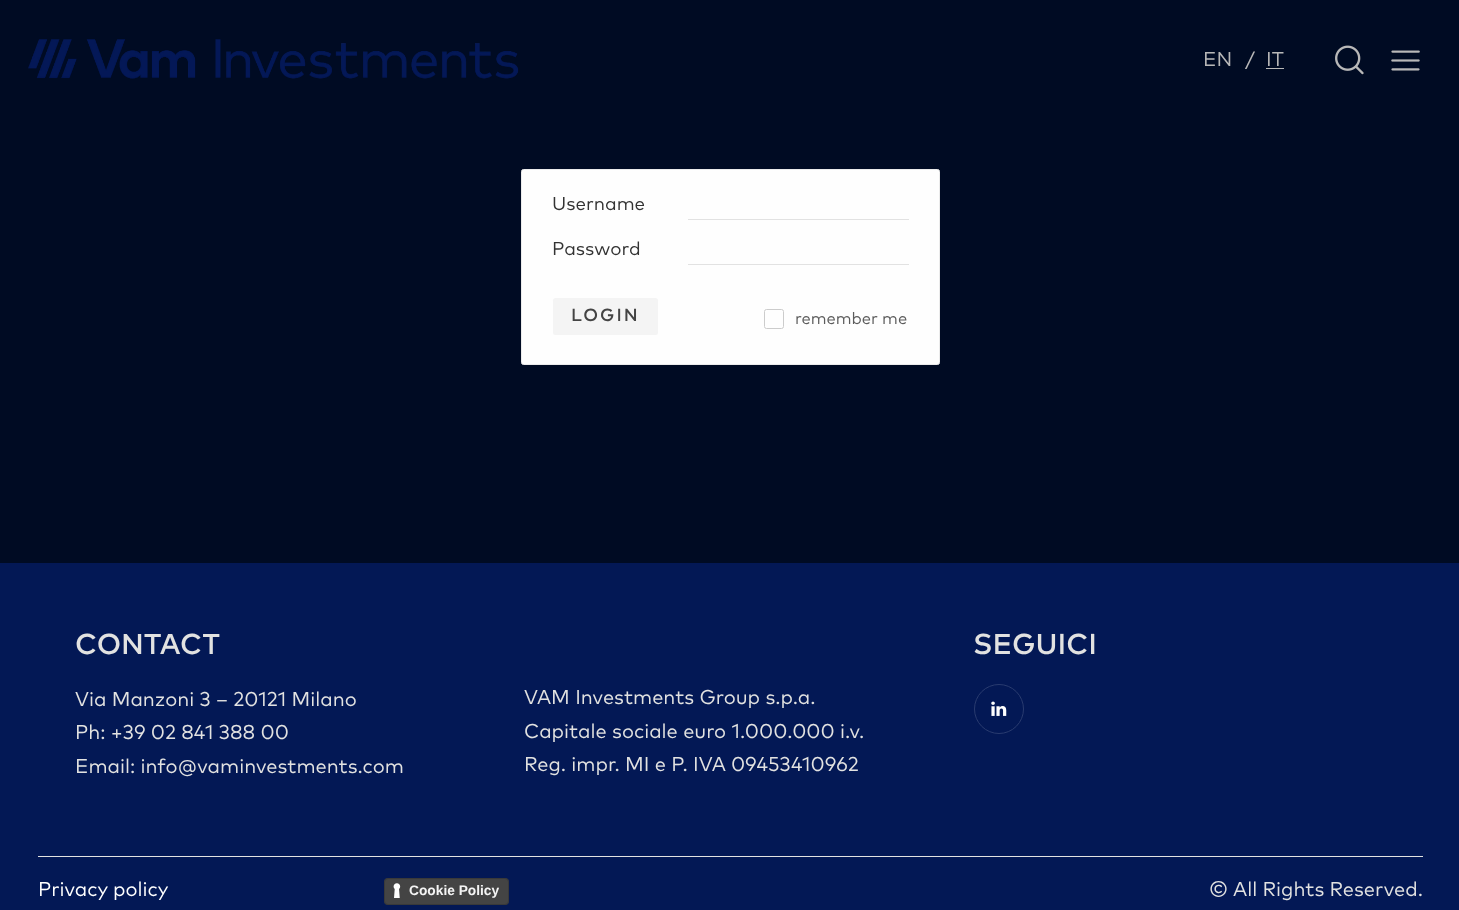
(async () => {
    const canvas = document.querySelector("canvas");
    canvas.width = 1459;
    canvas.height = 910;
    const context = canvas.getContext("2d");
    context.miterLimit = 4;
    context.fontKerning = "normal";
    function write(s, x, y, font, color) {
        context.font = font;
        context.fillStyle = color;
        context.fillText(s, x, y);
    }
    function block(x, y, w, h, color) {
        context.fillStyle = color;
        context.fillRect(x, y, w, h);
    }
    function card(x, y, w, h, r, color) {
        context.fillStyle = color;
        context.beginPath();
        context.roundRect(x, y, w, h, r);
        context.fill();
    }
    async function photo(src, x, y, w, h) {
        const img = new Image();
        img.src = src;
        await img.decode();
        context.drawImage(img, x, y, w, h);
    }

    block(0, 0, 1459, 910, "rgb(0, 11, 35)");
    await photo("media/1.png", 28, 39, 491, 40);
    write("EN", 1203, 66, "20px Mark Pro", "rgb(184, 184, 184)");
    write("/", 1245, 67, "20px Mark Pro", "rgb(184, 184, 184)");
    write("IT", 1266, 66, "20px Mark Pro", "rgb(184, 184, 184)");
    block(1266, 68, 18, 1, "rgb(184, 184, 184)");
    await photo("media/2.png", 1335, 45, 29, 30);
    await photo("media/3.png", 1391, 50, 29, 21);
    context.fillStyle = "rgb(254, 254, 254)";
    context.beginPath();
    context.roundRect(521.5, 169.5, 418, 195, 2);
    context.fill();
    context.strokeStyle = "rgb(235, 235, 235)";
    context.stroke();
    write("Username", 552, 210, "18.75px Mark Pro", "rgb(51, 51, 51)");
    block(688, 219, 221, 1, "rgb(226, 226, 226)");
    write("Password", 552, 255, "18.75px Mark Pro", "rgb(51, 51, 51)");
    block(688, 264, 221, 1, "rgb(226, 226, 226)");
    card(553, 298, 105, 37, 2.5, "rgb(244, 244, 244)");
    context.letterSpacing = "2px";
    write("LOGIN", 571, 321, "500 17.5px Mark Pro", "rgb(68, 68, 68)");
    context.beginPath();
    context.roundRect(764.5, 309.5, 19, 19, 2);
    context.strokeStyle = "rgb(204, 204, 204)";
    context.stroke();
    context.letterSpacing = "0px";
    write("remember me", 795, 324, "16.5px Mark Pro", "rgb(92, 92, 92)");
    block(0, 563, 1459, 347, "rgb(3, 24, 85)");
    write("CONTACT", 75, 654, "500 28.75px Mark Pro", "rgb(226, 226, 225)");
    write("Via Manzoni 3 – 20121 Milano", 75, 706, "20px Mark Pro", "rgb(226, 226, 225)");
    write("Ph: +39 02 841 388 00", 75, 739, "20px Mark Pro", "rgb(226, 226, 225)");
    write("Email: info@vaminvestments.com", 75, 773, "20px Mark Pro", "rgb(226, 226, 225)");
    write("SEGUICI", 973, 654, "500 28.75px Mark Pro", "rgb(226, 226, 225)");
    context.beginPath();
    context.arc(999, 709, 24.5, 0, Math.PI * 2);
    context.strokeStyle = "rgb(41, 59, 111)";
    context.stroke();
    await photo("media/4.png", 991, 701, 16, 15);
    write("VAM Investments Group s.p.a.", 524, 704, "20px Mark Pro", "rgb(226, 226, 225)");
    write("Capitale sociale euro 1.000.000 i.v.", 524, 738, "20px Mark Pro", "rgb(226, 226, 225)");
    write("Reg. impr. MI e P. IVA 09453410962", 524, 771, "20px Mark Pro", "rgb(226, 226, 225)");
    block(38, 856, 1385, 1, "rgb(226, 226, 225)");
    write("Privacy policy", 38, 896, "20px Mark Pro", "rgb(255, 255, 255)");
    context.fillStyle = "rgba(0, 0, 0, 0.15)";
    context.filter = "blur(0.5px)";
    context.beginPath();
    context.roundRect(385, 880, 123, 25, 2.5);
    context.fill();
    context.filter = "none";
    card(384, 878, 125, 27, 4, "rgb(68, 68, 68)");
    await photo("media/5.png", 393, 883, 8, 15);
    context.beginPath();
    context.roundRect(384.5, 878.5, 124, 26, 3.5);
    context.strokeStyle = "rgba(0, 0, 0, 0.15)";
    context.stroke();
    write("Cookie Policy", 409, 895, "bold 13.75px Liberation Sans", "rgb(244, 244, 244)");
    write("© All Rights Reserved.", 1209, 896, "20px Mark Pro", "rgb(226, 226, 225)");
})();
